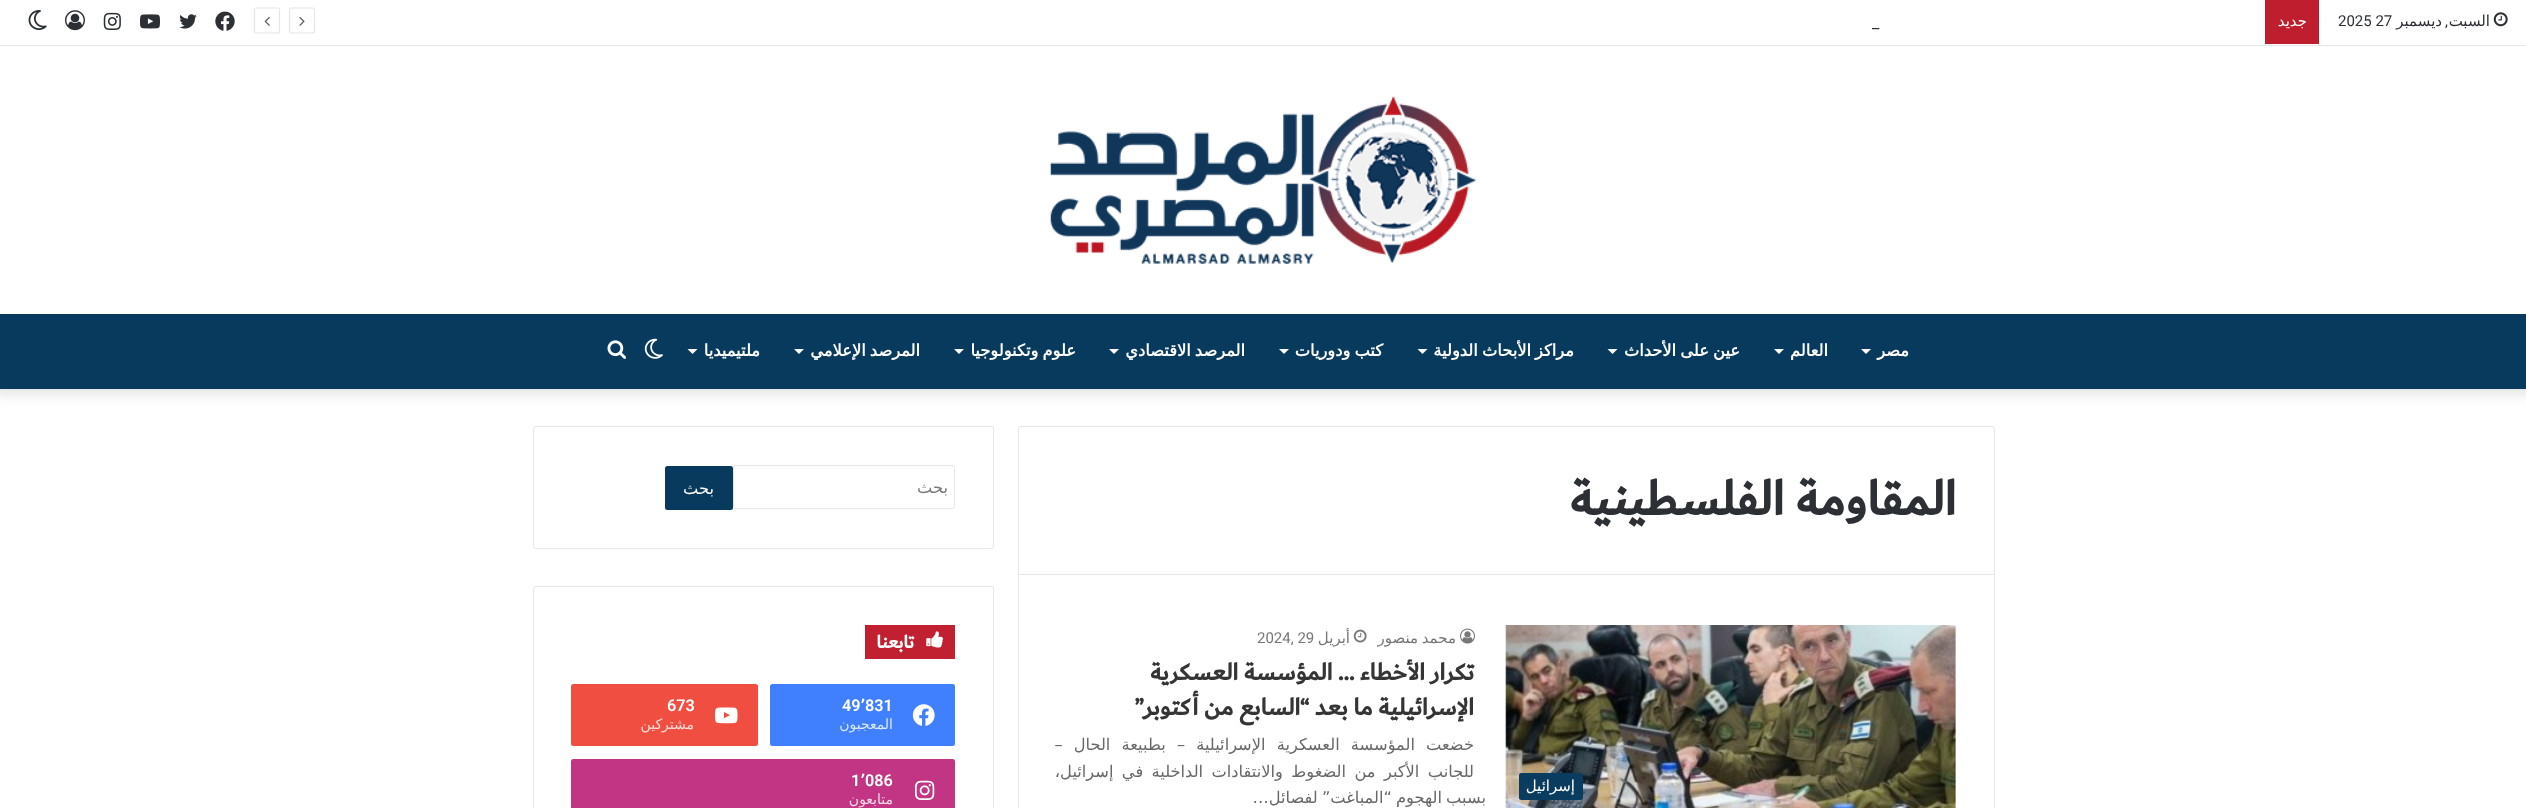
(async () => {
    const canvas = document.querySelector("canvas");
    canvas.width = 2526;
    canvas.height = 808;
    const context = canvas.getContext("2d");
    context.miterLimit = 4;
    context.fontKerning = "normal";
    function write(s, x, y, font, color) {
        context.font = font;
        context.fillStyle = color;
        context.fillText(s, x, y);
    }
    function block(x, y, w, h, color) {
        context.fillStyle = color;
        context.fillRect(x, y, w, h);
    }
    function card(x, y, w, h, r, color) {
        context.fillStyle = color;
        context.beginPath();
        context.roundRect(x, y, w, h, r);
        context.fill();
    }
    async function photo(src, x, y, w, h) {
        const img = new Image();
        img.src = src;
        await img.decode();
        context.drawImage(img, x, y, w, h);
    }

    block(0, 0, 2526, 808, "rgb(255, 255, 255)");
    context.fillStyle = "rgba(0, 0, 0, 0.1)";
    context.filter = "blur(6px)";
    context.beginPath();
    context.rect(-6, -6, 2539, 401);
    context.fill();
    context.filter = "none";
    block(0, 0, 2526, 314, "rgb(255, 255, 255)");
    block(0, 45, 2526, 1, "rgb(230, 230, 230)");
    await photo("media/1.png", 2493, 12, 15, 15);
    context.direction = "rtl";
    write("السبت", 2490, 26, "15px DejaVu Sans", "rgb(44, 47, 52)");
    write(",", 2448, 26, "15px Roboto", "rgb(44, 47, 52)");
    write("ديسمبر", 2442, 26, "15px DejaVu Sans", "rgb(44, 47, 52)");
    context.direction = "ltr";
    write("2025 27", 2338, 26, "15px Roboto", "rgb(44, 47, 52)");
    block(2265, 0, 54, 44, "rgb(191, 30, 46)");
    context.direction = "rtl";
    write("جديد", 2307, 26, "15px DejaVu Sans", "rgb(255, 255, 255)");
    context.direction = "ltr";
    write("_", 1872, 28, "16.25px Roboto", "rgb(44, 47, 52)");
    context.beginPath();
    context.moveTo(312.5, 33);
    context.lineTo(291, 33);
    context.bezierCurveTo(290, 33, 289.5, 32.5, 289.5, 31);
    context.lineTo(289.5, 10);
    context.bezierCurveTo(289.5, 9, 290, 8, 291, 8);
    context.lineTo(312.5, 8);
    context.bezierCurveTo(313.5, 8, 314.5, 9, 314.5, 10);
    context.lineTo(314.5, 31);
    context.bezierCurveTo(314.5, 32.5, 313.5, 33, 312.5, 33);
    context.closePath();
    context.strokeStyle = "rgb(230, 230, 230)";
    context.lineWidth = 1.2;
    context.stroke();
    await photo("media/2.png", 299, 16, 6, 10);
    context.beginPath();
    context.moveTo(277.5, 33);
    context.lineTo(256, 33);
    context.bezierCurveTo(255, 33, 254.5, 32.5, 254.5, 31);
    context.lineTo(254.5, 10);
    context.bezierCurveTo(254.5, 9, 255, 8, 256, 8);
    context.lineTo(277.5, 8);
    context.bezierCurveTo(278.5, 8, 279.5, 9, 279.5, 10);
    context.lineTo(279.5, 31);
    context.bezierCurveTo(279.5, 32.5, 278.5, 33, 277.5, 33);
    context.closePath();
    context.stroke();
    await photo("media/3.png", 264, 16, 6, 10);
    await photo("media/4.png", 215, 11, 20, 20);
    await photo("media/5.png", 179, 14, 18, 15);
    await photo("media/6.png", 140, 14, 20, 15);
    await photo("media/7.png", 103, 12, 18, 18);
    await photo("media/8.png", 65, 10, 20, 21);
    await photo("media/9.png", 28, 10, 19, 20);
    await photo("media/10.png", 1050, 96, 426, 168);
    block(0, 314, 2526, 75, "rgb(7, 58, 93)");
    context.direction = "rtl";
    write("مصر", 1909, 356, "bold 16.25px DejaVu Sans", "rgb(255, 255, 255)");
    context.beginPath();
    context.moveTo(1861, 349);
    context.lineTo(1871, 349);
    context.lineTo(1866, 354);
    context.closePath();
    context.fill();
    write("العالم", 1828, 356, "bold 16.25px DejaVu Sans", "rgb(255, 255, 255)");
    context.beginPath();
    context.moveTo(1774, 349);
    context.lineTo(1784, 349);
    context.lineTo(1779, 354);
    context.closePath();
    context.fill();
    context.wordSpacing = "-1px";
    write("عين على الأحداث", 1740, 356, "bold 16.25px DejaVu Sans", "rgb(255, 255, 255)");
    context.beginPath();
    context.moveTo(1607.5, 349);
    context.lineTo(1617.5, 349);
    context.lineTo(1612.5, 354);
    context.closePath();
    context.fill();
    write("مراكز الأبحاث الدولية", 1574, 356, "bold 16.25px DejaVu Sans", "rgb(255, 255, 255)");
    context.beginPath();
    context.moveTo(1417.5, 349);
    context.lineTo(1427.5, 349);
    context.lineTo(1422.5, 354);
    context.closePath();
    context.fill();
    write("كتب ودوريات", 1383, 356, "bold 16.25px DejaVu Sans", "rgb(255, 255, 255)");
    context.beginPath();
    context.moveTo(1279, 349);
    context.lineTo(1289, 349);
    context.lineTo(1284, 354);
    context.closePath();
    context.fill();
    write("المرصد الاقتصادي", 1245, 356, "bold 16.25px DejaVu Sans", "rgb(255, 255, 255)");
    context.beginPath();
    context.moveTo(1109, 349);
    context.lineTo(1119, 349);
    context.lineTo(1114, 354);
    context.closePath();
    context.fill();
    write("علوم وتكنولوجيا", 1076, 356, "bold 16.25px DejaVu Sans", "rgb(255, 255, 255)");
    context.beginPath();
    context.moveTo(954, 349);
    context.lineTo(964, 349);
    context.lineTo(959, 354);
    context.closePath();
    context.fill();
    write("المرصد الإعلامي", 920, 356, "bold 16.25px DejaVu Sans", "rgb(255, 255, 255)");
    context.beginPath();
    context.moveTo(794, 349);
    context.lineTo(804, 349);
    context.lineTo(799, 354);
    context.closePath();
    context.fill();
    context.wordSpacing = "0px";
    write("ملتيميديا", 760, 356, "bold 16.25px DejaVu Sans", "rgb(255, 255, 255)");
    context.beginPath();
    context.moveTo(687.5, 349);
    context.lineTo(697.5, 349);
    context.lineTo(692.5, 354);
    context.closePath();
    context.fill();
    await photo("media/11.png", 644, 338, 19, 21);
    await photo("media/12.png", 607, 340, 20, 19);
    context.beginPath();
    context.roundRect(1018.5, 426.5, 976, 148, [2, 2, 0, 0]);
    context.lineWidth = 1;
    context.stroke();
    write("المقاومة الفلسطينية", 1956, 515, "bold 51.25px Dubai", "rgb(44, 47, 52)");
    block(1994, 575, 1, 233, "rgb(230, 230, 230)");
    block(1018, 575, 1, 233, "rgb(230, 230, 230)");
    await photo("media/13.png", 1505, 625, 451, 183);
    card(1519, 773, 64, 27, 2.5, "rgb(9, 60, 95)");
    write("إسرائيل", 1575, 791, "15px DejaVu Sans", "rgb(255, 255, 255)");
    await photo("media/14.png", 1460, 628, 15, 16);
    context.wordSpacing = "-1px";
    write("محمد منصور", 1456, 643, "15px DejaVu Sans", "rgb(119, 119, 119)");
    await photo("media/15.png", 1353, 629, 14, 14);
    context.wordSpacing = "0px";
    write("أبريل", 1350, 643, "15px DejaVu Sans", "rgb(119, 119, 119)");
    context.direction = "ltr";
    write("2024, 29", 1257, 643, "15px Roboto", "rgb(119, 119, 119)");
    context.direction = "rtl";
    write("تكرار الأخطاء … المؤسسة العسكرية", 1474, 680, "bold 25px Dubai", "rgb(53, 53, 53)");
    write("الإسرائيلية ما بعد “السابع من أكتوبر”", 1474, 715, "bold 25px Dubai", "rgb(53, 53, 53)");
    context.wordSpacing = "6px";
    write("خضعت المؤسسة العسكرية الإسرائيلية – بطبيعة الحال –", 1474, 750, "16.25px DejaVu Sans", "rgb(104, 104, 104)");
    context.wordSpacing = "3.25px";
    write("للجانب الأكبر من الضغوط والانتقادات الداخلية في إسرائيل،", 1474, 777, "16.25px DejaVu Sans", "rgb(104, 104, 104)");
    context.wordSpacing = "-1px";
    write("بسبب الهجوم “المباغت” لفصائل…", 1486, 803, "16.25px DejaVu Sans", "rgb(104, 104, 104)");
    context.beginPath();
    context.roundRect(533.5, 426.5, 460, 122, 2);
    context.stroke();
    context.beginPath();
    context.roundRect(733.5, 465.5, 221, 43, 2);
    context.stroke();
    context.wordSpacing = "0px";
    write("بحث", 948, 493, "16.25px DejaVu Sans", "rgb(119, 119, 119)");
    card(665, 466, 68, 44, 2.5, "rgb(7, 58, 93)");
    write("بحث", 714, 494, "16.25px DejaVu Sans", "rgb(255, 255, 255)");
    context.beginPath();
    context.roundRect(533.5, 586.5, 460, 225, 2);
    context.stroke();
    block(865, 625, 90, 34, "rgb(192, 32, 48)");
    await photo("media/16.png", 926, 631, 17, 17);
    write("تابعنا", 914, 648, "bold 19px Dubai", "rgb(255, 255, 255)");
    card(770, 684, 185, 62, 2.5, "rgb(64, 128, 255)");
    await photo("media/17.png", 912, 704, 23, 22);
    context.direction = "ltr";
    write("831", 865, 711, "600 16.25px Roboto", "rgb(255, 255, 255)");
    write("٬", 860, 711, "bold 16.25px DejaVu Sans", "rgb(255, 255, 255)");
    write("49", 842, 711, "600 16.25px Roboto", "rgb(255, 255, 255)");
    context.direction = "rtl";
    write("المعجبون", 893, 729, "14px DejaVu Sans", "rgb(217, 230, 255)");
    card(571, 684, 187, 62, 2.5, "rgb(239, 78, 65)");
    await photo("media/18.png", 715, 707, 23, 17);
    context.direction = "ltr";
    write("673", 667, 711, "600 16.25px Roboto", "rgb(255, 255, 255)");
    context.direction = "rtl";
    write("مشتركين", 694, 729, "14px DejaVu Sans", "rgb(252, 220, 217)");
    card(571, 759, 384, 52, 2.5, "rgb(193, 53, 132)");
    await photo("media/19.png", 915, 780, 20, 20);
    context.direction = "ltr";
    write("086", 865, 786, "600 16.25px Roboto", "rgb(255, 255, 255)");
    write("٬", 860, 786, "bold 16.25px DejaVu Sans", "rgb(255, 255, 255)");
    write("1", 851, 786, "600 16.25px Roboto", "rgb(255, 255, 255)");
    context.direction = "rtl";
    write("متابعون", 893, 804, "14px DejaVu Sans", "rgb(243, 215, 230)");
})();
